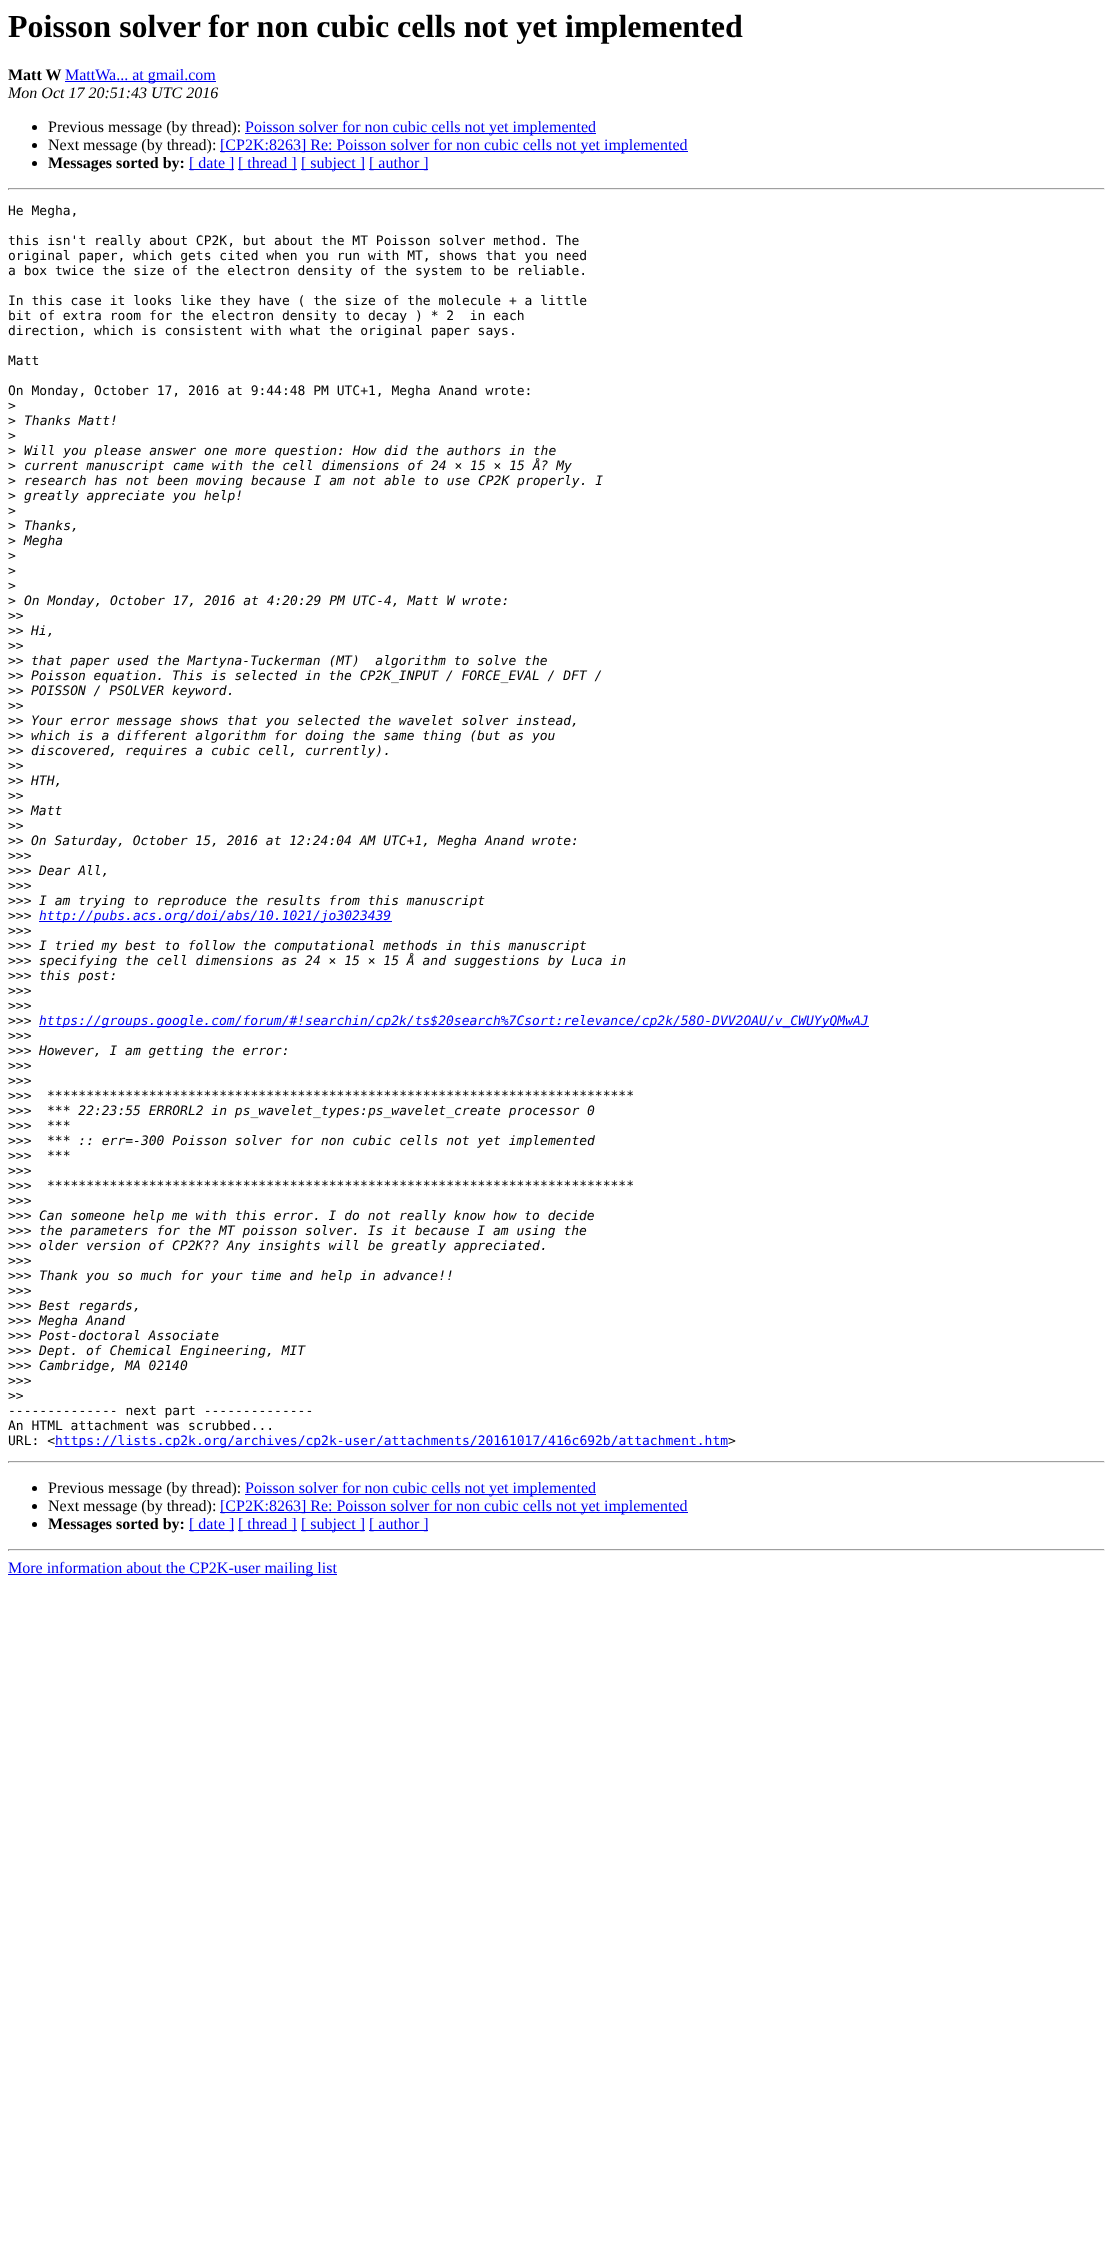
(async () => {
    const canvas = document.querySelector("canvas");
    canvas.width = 1113;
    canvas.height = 2258;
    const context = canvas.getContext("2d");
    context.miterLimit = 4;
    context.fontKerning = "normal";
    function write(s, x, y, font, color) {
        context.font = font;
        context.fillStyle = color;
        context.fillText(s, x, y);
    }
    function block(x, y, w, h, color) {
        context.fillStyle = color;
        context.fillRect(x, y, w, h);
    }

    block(0, 0, 1113, 2258, "rgb(255, 255, 255)");
    write("Poisson solver for non cubic cells not yet implemented", 8, 37, "bold 32px Liberation Serif", "rgb(0, 0, 0)");
    write("Matt W", 8, 80, "bold 16px Liberation Serif", "rgb(0, 0, 0)");
    block(65, 81, 151, 1, "rgb(0, 0, 238)");
    write("MattWa... at gmail.com", 65, 80, "16px Liberation Serif", "rgb(0, 0, 238)");
    write("Mon Oct 17 20:51:43 UTC 2016", 8, 98, "italic 16px Liberation Serif", "rgb(0, 0, 0)");
    context.beginPath();
    context.arc(34.5, 127.5, 2.5, 0, Math.PI * 2);
    context.fill();
    write("Previous message (by thread):", 48, 132, "16px Liberation Serif", "rgb(0, 0, 0)");
    block(245, 133, 351, 1, "rgb(0, 0, 238)");
    write("Poisson solver for non cubic cells not yet implemented", 245, 132, "16px Liberation Serif", "rgb(0, 0, 238)");
    context.fillStyle = "rgb(0, 0, 0)";
    context.beginPath();
    context.arc(34.5, 145.5, 2.5, 0, Math.PI * 2);
    context.fill();
    write("Next message (by thread):", 48, 150, "16px Liberation Serif", "rgb(0, 0, 0)");
    block(220, 151, 468, 1, "rgb(0, 0, 238)");
    write("[CP2K:8263] Re: Poisson solver for non cubic cells not yet implemented", 220, 150, "16px Liberation Serif", "rgb(0, 0, 238)");
    context.fillStyle = "rgb(0, 0, 0)";
    context.beginPath();
    context.arc(34.5, 163.5, 2.5, 0, Math.PI * 2);
    context.fill();
    write("Messages sorted by:", 48, 168, "bold 16px Liberation Serif", "rgb(0, 0, 0)");
    block(189, 169, 45, 1, "rgb(0, 0, 238)");
    write("[ date ]", 189, 168, "16px Liberation Serif", "rgb(0, 0, 238)");
    block(238, 169, 59, 1, "rgb(0, 0, 238)");
    write("[ thread ]", 238, 168, "16px Liberation Serif", "rgb(0, 0, 238)");
    block(301, 169, 64, 1, "rgb(0, 0, 238)");
    write("[ subject ]", 301, 168, "16px Liberation Serif", "rgb(0, 0, 238)");
    block(369, 169, 59, 1, "rgb(0, 0, 238)");
    write("[ author ]", 369, 168, "16px Liberation Serif", "rgb(0, 0, 238)");
    block(8, 188, 1097, 1, "rgb(159, 159, 159)");
    block(1104, 188, 1, 2, "rgb(238, 238, 238)");
    block(8, 189, 1097, 1, "rgb(238, 238, 238)");
    block(8, 188, 1, 2, "rgb(159, 159, 159)");
    write("He Megha,", 8, 215, "13px DejaVu Sans Mono", "rgb(0, 0, 0)");
    write("this isn't really about CP2K, but about the MT Poisson solver method. The", 8, 245, "13px DejaVu Sans Mono", "rgb(0, 0, 0)");
    write("original paper, which gets cited when you run with MT, shows that you need", 8, 260, "13px DejaVu Sans Mono", "rgb(0, 0, 0)");
    write("a box twice the size of the electron density of the system to be reliable.", 8, 275, "13px DejaVu Sans Mono", "rgb(0, 0, 0)");
    write("In this case it looks like they have ( the size of the molecule + a little", 8, 305, "13px DejaVu Sans Mono", "rgb(0, 0, 0)");
    write("bit of extra room for the electron density to decay ) * 2  in each", 8, 320, "13px DejaVu Sans Mono", "rgb(0, 0, 0)");
    write("direction, which is consistent with what the original paper says.", 8, 335, "13px DejaVu Sans Mono", "rgb(0, 0, 0)");
    write("Matt", 8, 365, "13px DejaVu Sans Mono", "rgb(0, 0, 0)");
    write("On Monday, October 17, 2016 at 9:44:48 PM UTC+1, Megha Anand wrote:", 8, 395, "13px DejaVu Sans Mono", "rgb(0, 0, 0)");
    write(">", 8, 410, "13px DejaVu Sans Mono", "rgb(0, 0, 0)");
    write(">", 8, 425, "13px DejaVu Sans Mono", "rgb(0, 0, 0)");
    write("Thanks Matt!", 24, 425, "italic 13px DejaVu Sans Mono", "rgb(0, 0, 0)");
    write(">", 8, 440, "13px DejaVu Sans Mono", "rgb(0, 0, 0)");
    write(">", 8, 455, "13px DejaVu Sans Mono", "rgb(0, 0, 0)");
    write("Will you please answer one more question: How did the authors in the", 24, 455, "italic 13px DejaVu Sans Mono", "rgb(0, 0, 0)");
    write(">", 8, 470, "13px DejaVu Sans Mono", "rgb(0, 0, 0)");
    write("current manuscript came with the cell dimensions of 24 × 15 × 15 Å? My", 24, 470, "italic 13px DejaVu Sans Mono", "rgb(0, 0, 0)");
    write(">", 8, 485, "13px DejaVu Sans Mono", "rgb(0, 0, 0)");
    write("research has not been moving because I am not able to use CP2K properly. I", 24, 485, "italic 13px DejaVu Sans Mono", "rgb(0, 0, 0)");
    write(">", 8, 500, "13px DejaVu Sans Mono", "rgb(0, 0, 0)");
    write("greatly appreciate you help!", 24, 500, "italic 13px DejaVu Sans Mono", "rgb(0, 0, 0)");
    write(">", 8, 515, "13px DejaVu Sans Mono", "rgb(0, 0, 0)");
    write(">", 8, 530, "13px DejaVu Sans Mono", "rgb(0, 0, 0)");
    write("Thanks,", 24, 530, "italic 13px DejaVu Sans Mono", "rgb(0, 0, 0)");
    write(">", 8, 545, "13px DejaVu Sans Mono", "rgb(0, 0, 0)");
    write("Megha", 24, 545, "italic 13px DejaVu Sans Mono", "rgb(0, 0, 0)");
    write(">", 8, 560, "13px DejaVu Sans Mono", "rgb(0, 0, 0)");
    write(">", 8, 575, "13px DejaVu Sans Mono", "rgb(0, 0, 0)");
    write(">", 8, 590, "13px DejaVu Sans Mono", "rgb(0, 0, 0)");
    write(">", 8, 605, "13px DejaVu Sans Mono", "rgb(0, 0, 0)");
    write("On Monday, October 17, 2016 at 4:20:29 PM UTC-4, Matt W wrote:", 24, 605, "italic 13px DejaVu Sans Mono", "rgb(0, 0, 0)");
    write(">>", 8, 620, "13px DejaVu Sans Mono", "rgb(0, 0, 0)");
    write(">>", 8, 635, "13px DejaVu Sans Mono", "rgb(0, 0, 0)");
    write("Hi,", 31, 635, "italic 13px DejaVu Sans Mono", "rgb(0, 0, 0)");
    write(">>", 8, 650, "13px DejaVu Sans Mono", "rgb(0, 0, 0)");
    write(">>", 8, 665, "13px DejaVu Sans Mono", "rgb(0, 0, 0)");
    write("that paper used the Martyna-Tuckerman (MT)  algorithm to solve the", 31, 665, "italic 13px DejaVu Sans Mono", "rgb(0, 0, 0)");
    write(">>", 8, 680, "13px DejaVu Sans Mono", "rgb(0, 0, 0)");
    write("Poisson equation. This is selected in the CP2K_INPUT / FORCE_EVAL / DFT /", 31, 680, "italic 13px DejaVu Sans Mono", "rgb(0, 0, 0)");
    write(">>", 8, 695, "13px DejaVu Sans Mono", "rgb(0, 0, 0)");
    write("POISSON / PSOLVER keyword.", 31, 695, "italic 13px DejaVu Sans Mono", "rgb(0, 0, 0)");
    write(">>", 8, 710, "13px DejaVu Sans Mono", "rgb(0, 0, 0)");
    write(">>", 8, 725, "13px DejaVu Sans Mono", "rgb(0, 0, 0)");
    write("Your error message shows that you selected the wavelet solver instead,", 31, 725, "italic 13px DejaVu Sans Mono", "rgb(0, 0, 0)");
    write(">>", 8, 740, "13px DejaVu Sans Mono", "rgb(0, 0, 0)");
    write("which is a different algorithm for doing the same thing (but as you", 31, 740, "italic 13px DejaVu Sans Mono", "rgb(0, 0, 0)");
    write(">>", 8, 755, "13px DejaVu Sans Mono", "rgb(0, 0, 0)");
    write("discovered, requires a cubic cell, currently).", 31, 755, "italic 13px DejaVu Sans Mono", "rgb(0, 0, 0)");
    write(">>", 8, 770, "13px DejaVu Sans Mono", "rgb(0, 0, 0)");
    write(">>", 8, 785, "13px DejaVu Sans Mono", "rgb(0, 0, 0)");
    write("HTH,", 31, 785, "italic 13px DejaVu Sans Mono", "rgb(0, 0, 0)");
    write(">>", 8, 800, "13px DejaVu Sans Mono", "rgb(0, 0, 0)");
    write(">>", 8, 815, "13px DejaVu Sans Mono", "rgb(0, 0, 0)");
    write("Matt", 31, 815, "italic 13px DejaVu Sans Mono", "rgb(0, 0, 0)");
    write(">>", 8, 830, "13px DejaVu Sans Mono", "rgb(0, 0, 0)");
    write(">>", 8, 845, "13px DejaVu Sans Mono", "rgb(0, 0, 0)");
    write("On Saturday, October 15, 2016 at 12:24:04 AM UTC+1, Megha Anand wrote:", 31, 845, "italic 13px DejaVu Sans Mono", "rgb(0, 0, 0)");
    write(">>>", 8, 860, "13px DejaVu Sans Mono", "rgb(0, 0, 0)");
    write(">>>", 8, 875, "13px DejaVu Sans Mono", "rgb(0, 0, 0)");
    write("Dear All,", 39, 875, "italic 13px DejaVu Sans Mono", "rgb(0, 0, 0)");
    write(">>>", 8, 890, "13px DejaVu Sans Mono", "rgb(0, 0, 0)");
    write(">>>", 8, 905, "13px DejaVu Sans Mono", "rgb(0, 0, 0)");
    write("I am trying to reproduce the results from this manuscript", 39, 905, "italic 13px DejaVu Sans Mono", "rgb(0, 0, 0)");
    write(">>>", 8, 920, "13px DejaVu Sans Mono", "rgb(0, 0, 0)");
    block(39, 921, 353, 1, "rgb(0, 0, 238)");
    write("http://pubs.acs.org/doi/abs/10.1021/jo3023439", 39, 920, "italic 13px DejaVu Sans Mono", "rgb(0, 0, 238)");
    write(">>>", 8, 935, "13px DejaVu Sans Mono", "rgb(0, 0, 0)");
    write(">>>", 8, 950, "13px DejaVu Sans Mono", "rgb(0, 0, 0)");
    write("I tried my best to follow the computational methods in this manuscript", 39, 950, "italic 13px DejaVu Sans Mono", "rgb(0, 0, 0)");
    write(">>>", 8, 965, "13px DejaVu Sans Mono", "rgb(0, 0, 0)");
    write("specifying the cell dimensions as 24 × 15 × 15 Å and suggestions by Luca in", 39, 965, "italic 13px DejaVu Sans Mono", "rgb(0, 0, 0)");
    write(">>>", 8, 980, "13px DejaVu Sans Mono", "rgb(0, 0, 0)");
    write("this post:", 39, 980, "italic 13px DejaVu Sans Mono", "rgb(0, 0, 0)");
    write(">>>", 8, 995, "13px DejaVu Sans Mono", "rgb(0, 0, 0)");
    write(">>>", 8, 1010, "13px DejaVu Sans Mono", "rgb(0, 0, 0)");
    write(">>>", 8, 1025, "13px DejaVu Sans Mono", "rgb(0, 0, 0)");
    block(39, 1026, 830, 1, "rgb(0, 0, 238)");
    write("https://groups.google.com/forum/#!searchin/cp2k/ts$20search%7Csort:relevance/cp2k/58O-DVV2OAU/v_CWUYyQMwAJ", 39, 1025, "italic 13px DejaVu Sans Mono", "rgb(0, 0, 238)");
    write(">>>", 8, 1040, "13px DejaVu Sans Mono", "rgb(0, 0, 0)");
    write(">>>", 8, 1055, "13px DejaVu Sans Mono", "rgb(0, 0, 0)");
    write("However, I am getting the error:", 39, 1055, "italic 13px DejaVu Sans Mono", "rgb(0, 0, 0)");
    write(">>>", 8, 1070, "13px DejaVu Sans Mono", "rgb(0, 0, 0)");
    write(">>>", 8, 1085, "13px DejaVu Sans Mono", "rgb(0, 0, 0)");
    write(">>>", 8, 1100, "13px DejaVu Sans Mono", "rgb(0, 0, 0)");
    write("***************************************************************************", 47, 1100, "italic 13px DejaVu Sans Mono", "rgb(0, 0, 0)");
    write(">>>", 8, 1115, "13px DejaVu Sans Mono", "rgb(0, 0, 0)");
    write("*** 22:23:55 ERRORL2 in ps_wavelet_types:ps_wavelet_create processor 0", 47, 1115, "italic 13px DejaVu Sans Mono", "rgb(0, 0, 0)");
    write(">>>", 8, 1130, "13px DejaVu Sans Mono", "rgb(0, 0, 0)");
    write("***", 47, 1130, "italic 13px DejaVu Sans Mono", "rgb(0, 0, 0)");
    write(">>>", 8, 1145, "13px DejaVu Sans Mono", "rgb(0, 0, 0)");
    write("*** :: err=-300 Poisson solver for non cubic cells not yet implemented", 47, 1145, "italic 13px DejaVu Sans Mono", "rgb(0, 0, 0)");
    write(">>>", 8, 1160, "13px DejaVu Sans Mono", "rgb(0, 0, 0)");
    write("***", 47, 1160, "italic 13px DejaVu Sans Mono", "rgb(0, 0, 0)");
    write(">>>", 8, 1175, "13px DejaVu Sans Mono", "rgb(0, 0, 0)");
    write(">>>", 8, 1190, "13px DejaVu Sans Mono", "rgb(0, 0, 0)");
    write("***************************************************************************", 47, 1190, "italic 13px DejaVu Sans Mono", "rgb(0, 0, 0)");
    write(">>>", 8, 1205, "13px DejaVu Sans Mono", "rgb(0, 0, 0)");
    write(">>>", 8, 1220, "13px DejaVu Sans Mono", "rgb(0, 0, 0)");
    write("Can someone help me with this error. I do not really know how to decide", 39, 1220, "italic 13px DejaVu Sans Mono", "rgb(0, 0, 0)");
    write(">>>", 8, 1235, "13px DejaVu Sans Mono", "rgb(0, 0, 0)");
    write("the parameters for the MT poisson solver. Is it because I am using the", 39, 1235, "italic 13px DejaVu Sans Mono", "rgb(0, 0, 0)");
    write(">>>", 8, 1250, "13px DejaVu Sans Mono", "rgb(0, 0, 0)");
    write("older version of CP2K?? Any insights will be greatly appreciated.", 39, 1250, "italic 13px DejaVu Sans Mono", "rgb(0, 0, 0)");
    write(">>>", 8, 1265, "13px DejaVu Sans Mono", "rgb(0, 0, 0)");
    write(">>>", 8, 1280, "13px DejaVu Sans Mono", "rgb(0, 0, 0)");
    write("Thank you so much for your time and help in advance!!", 39, 1280, "italic 13px DejaVu Sans Mono", "rgb(0, 0, 0)");
    write(">>>", 8, 1295, "13px DejaVu Sans Mono", "rgb(0, 0, 0)");
    write(">>>", 8, 1310, "13px DejaVu Sans Mono", "rgb(0, 0, 0)");
    write("Best regards,", 39, 1310, "italic 13px DejaVu Sans Mono", "rgb(0, 0, 0)");
    write(">>>", 8, 1325, "13px DejaVu Sans Mono", "rgb(0, 0, 0)");
    write("Megha Anand", 39, 1325, "italic 13px DejaVu Sans Mono", "rgb(0, 0, 0)");
    write(">>>", 8, 1340, "13px DejaVu Sans Mono", "rgb(0, 0, 0)");
    write("Post-doctoral Associate", 39, 1340, "italic 13px DejaVu Sans Mono", "rgb(0, 0, 0)");
    write(">>>", 8, 1355, "13px DejaVu Sans Mono", "rgb(0, 0, 0)");
    write("Dept. of Chemical Engineering, MIT", 39, 1355, "italic 13px DejaVu Sans Mono", "rgb(0, 0, 0)");
    write(">>>", 8, 1370, "13px DejaVu Sans Mono", "rgb(0, 0, 0)");
    write("Cambridge, MA 02140", 39, 1370, "italic 13px DejaVu Sans Mono", "rgb(0, 0, 0)");
    write(">>>", 8, 1385, "13px DejaVu Sans Mono", "rgb(0, 0, 0)");
    write(">>", 8, 1400, "13px DejaVu Sans Mono", "rgb(0, 0, 0)");
    write("-------------- next part --------------", 8, 1415, "13px DejaVu Sans Mono", "rgb(0, 0, 0)");
    write("An HTML attachment was scrubbed...", 8, 1430, "13px DejaVu Sans Mono", "rgb(0, 0, 0)");
    write("URL: <", 8, 1445, "13px DejaVu Sans Mono", "rgb(0, 0, 0)");
    block(55, 1446, 673, 1, "rgb(0, 0, 238)");
    write("https://lists.cp2k.org/archives/cp2k-user/attachments/20161017/416c692b/attachment.htm", 55, 1445, "13px DejaVu Sans Mono", "rgb(0, 0, 238)");
    write(">", 728, 1445, "13px DejaVu Sans Mono", "rgb(0, 0, 0)");
    block(8, 1461, 1097, 1, "rgb(159, 159, 159)");
    block(1104, 1461, 1, 2, "rgb(238, 238, 238)");
    block(8, 1462, 1097, 1, "rgb(238, 238, 238)");
    block(8, 1461, 1, 2, "rgb(159, 159, 159)");
    context.fillStyle = "rgb(0, 0, 0)";
    context.beginPath();
    context.arc(34.5, 1488.5, 2.5, 0, Math.PI * 2);
    context.fill();
    write("Previous message (by thread):", 48, 1493, "16px Liberation Serif", "rgb(0, 0, 0)");
    block(245, 1494, 351, 1, "rgb(0, 0, 238)");
    write("Poisson solver for non cubic cells not yet implemented", 245, 1493, "16px Liberation Serif", "rgb(0, 0, 238)");
    context.fillStyle = "rgb(0, 0, 0)";
    context.beginPath();
    context.arc(34.5, 1506.5, 2.5, 0, Math.PI * 2);
    context.fill();
    write("Next message (by thread):", 48, 1511, "16px Liberation Serif", "rgb(0, 0, 0)");
    block(220, 1512, 468, 1, "rgb(0, 0, 238)");
    write("[CP2K:8263] Re: Poisson solver for non cubic cells not yet implemented", 220, 1511, "16px Liberation Serif", "rgb(0, 0, 238)");
    context.fillStyle = "rgb(0, 0, 0)";
    context.beginPath();
    context.arc(34.5, 1524.5, 2.5, 0, Math.PI * 2);
    context.fill();
    write("Messages sorted by:", 48, 1529, "bold 16px Liberation Serif", "rgb(0, 0, 0)");
    block(189, 1530, 45, 1, "rgb(0, 0, 238)");
    write("[ date ]", 189, 1529, "16px Liberation Serif", "rgb(0, 0, 238)");
    block(238, 1530, 59, 1, "rgb(0, 0, 238)");
    write("[ thread ]", 238, 1529, "16px Liberation Serif", "rgb(0, 0, 238)");
    block(301, 1530, 64, 1, "rgb(0, 0, 238)");
    write("[ subject ]", 301, 1529, "16px Liberation Serif", "rgb(0, 0, 238)");
    block(369, 1530, 59, 1, "rgb(0, 0, 238)");
    write("[ author ]", 369, 1529, "16px Liberation Serif", "rgb(0, 0, 238)");
    block(8, 1549, 1097, 1, "rgb(159, 159, 159)");
    block(1104, 1549, 1, 2, "rgb(238, 238, 238)");
    block(8, 1550, 1097, 1, "rgb(238, 238, 238)");
    block(8, 1549, 1, 2, "rgb(159, 159, 159)");
    block(8, 1574, 329, 1, "rgb(0, 0, 238)");
    write("More information about the CP2K-user mailing list", 8, 1573, "16px Liberation Serif", "rgb(0, 0, 238)");
})();
